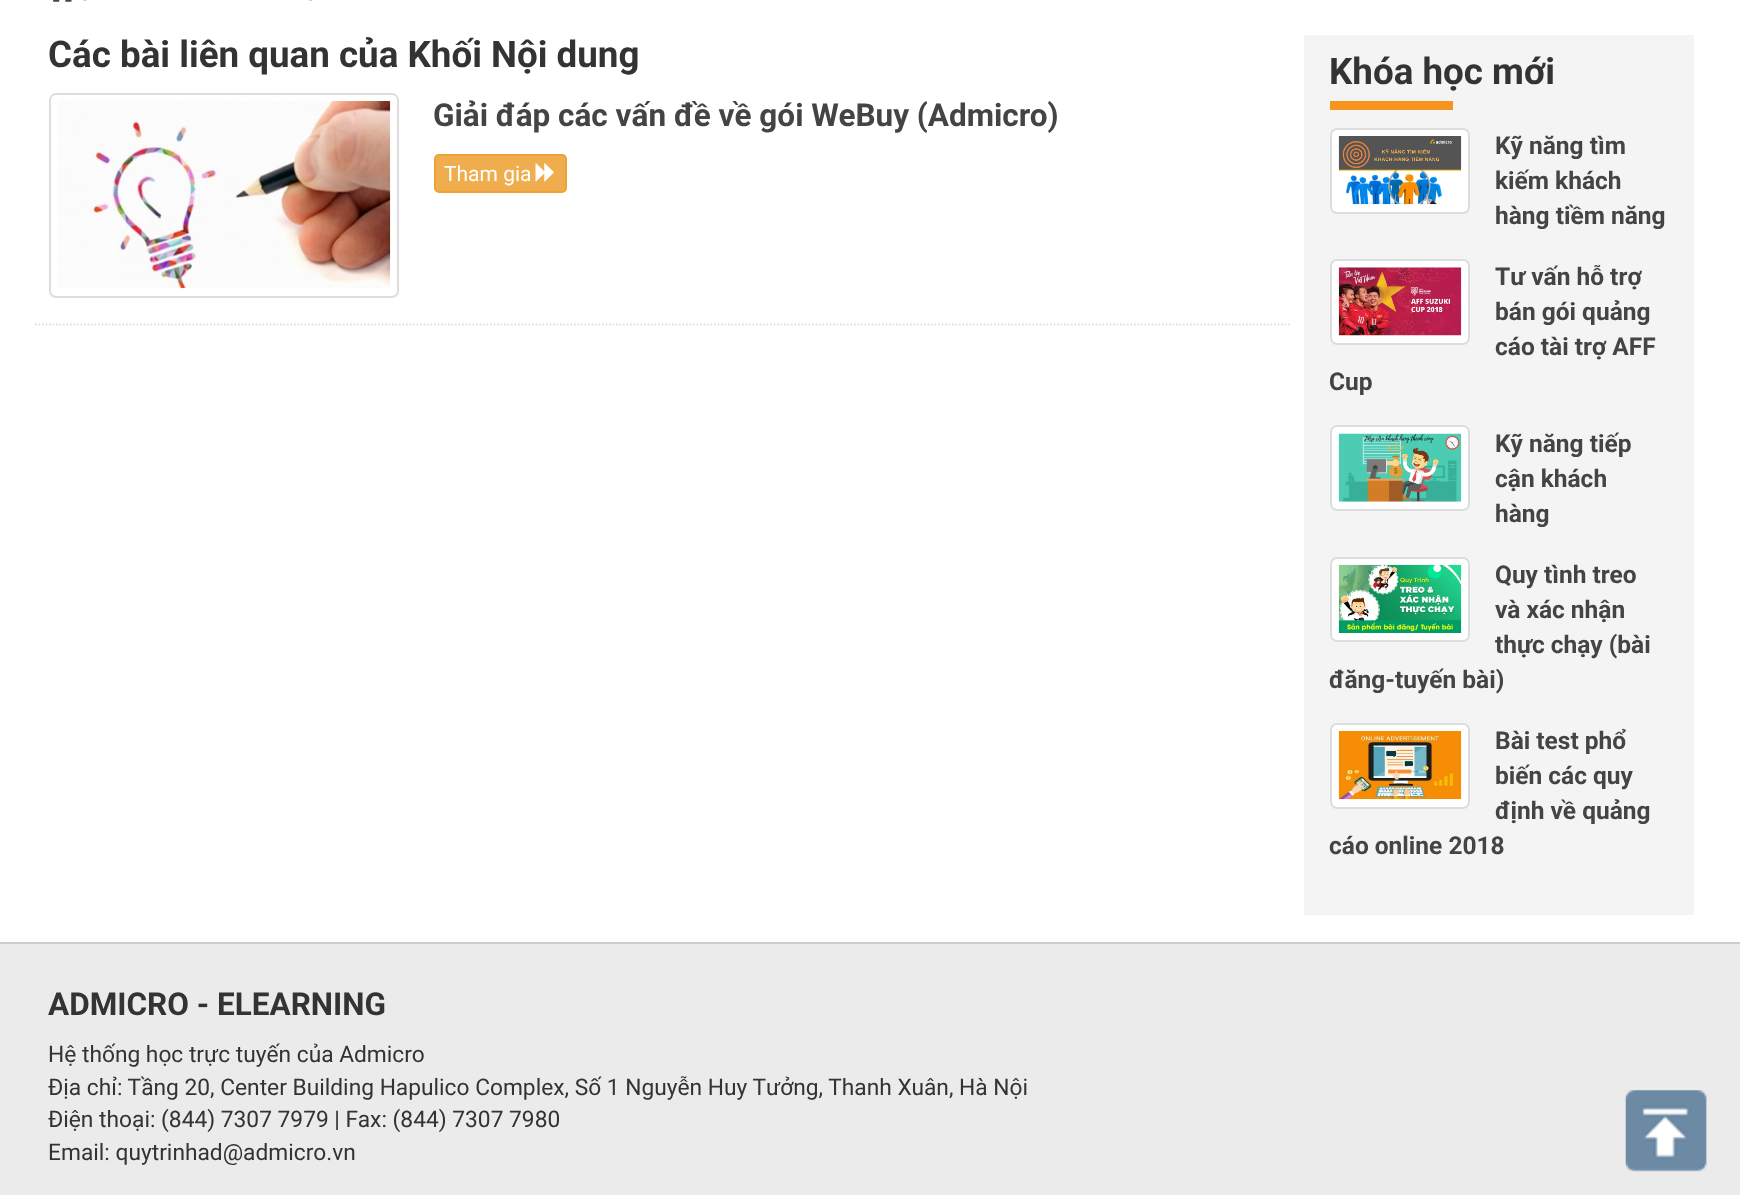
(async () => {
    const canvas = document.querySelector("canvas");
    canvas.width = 1740;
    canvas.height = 1195;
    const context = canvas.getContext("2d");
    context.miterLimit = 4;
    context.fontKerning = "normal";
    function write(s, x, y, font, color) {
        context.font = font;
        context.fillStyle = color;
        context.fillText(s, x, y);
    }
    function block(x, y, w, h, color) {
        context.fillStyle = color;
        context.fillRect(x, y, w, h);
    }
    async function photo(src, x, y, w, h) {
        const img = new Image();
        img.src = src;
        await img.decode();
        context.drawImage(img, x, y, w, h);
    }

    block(0, 0, 1740, 1195, "rgb(255, 255, 255)");
    await photo("media/1.png", 53, 0, 19, 2);
    await photo("media/2.png", 83, 0, 4, 1);
    await photo("media/3.png", 309, 0, 4, 1);
    write("Các bài liên quan của Khối Nội dung", 48, 67, "bold 36.75px Roboto", "rgb(51, 51, 51)");
    context.beginPath();
    context.moveTo(35, 324.5);
    context.lineTo(1290, 324.5);
    context.strokeStyle = "rgb(226, 226, 226)";
    context.lineWidth = 1.8;
    context.setLineDash([1.75, 1.75]);
    context.stroke();
    context.beginPath();
    context.roundRect(50, 94, 348, 203, 6);
    context.strokeStyle = "rgb(221, 221, 221)";
    context.lineWidth = 2;
    context.setLineDash([]);
    context.stroke();
    await photo("media/4.png", 58, 101, 333, 188);
    write("Giải đáp các vấn đề về gói WeBuy (Admicro)", 433, 126, "bold 31.5px Roboto", "rgb(68, 68, 68)");
    context.fillStyle = "rgb(240, 173, 78)";
    context.beginPath();
    context.roundRect(435, 155, 131, 37, 4);
    context.fill();
    context.strokeStyle = "rgb(238, 162, 54)";
    context.stroke();
    write("Tham gia", 444, 181, "21px Roboto", "rgb(255, 255, 255)");
    await photo("media/5.png", 535, 163, 19, 19);
    block(1304, 35, 390, 880, "rgb(244, 244, 244)");
    block(1330, 101, 123, 9, "rgb(247, 148, 30)");
    write("Khóa học mới", 1329, 84, "bold 36.75px Roboto", "rgb(51, 51, 51)");
    context.fillStyle = "rgb(255, 255, 255)";
    context.beginPath();
    context.roundRect(1331, 129, 138, 84, 6);
    context.fill();
    context.strokeStyle = "rgb(221, 221, 221)";
    context.stroke();
    await photo("media/6.png", 1338, 136, 124, 69);
    write("Kỹ năng tìm", 1495, 154, "bold 24.5px Roboto", "rgb(68, 68, 68)");
    write("kiếm khách", 1495, 189, "bold 24.5px Roboto", "rgb(68, 68, 68)");
    write("hàng tiềm năng", 1495, 224, "bold 24.5px Roboto", "rgb(68, 68, 68)");
    context.fillStyle = "rgb(255, 255, 255)";
    context.beginPath();
    context.roundRect(1331, 260, 138, 84, 6);
    context.fill();
    context.stroke();
    await photo("media/7.png", 1338, 267, 124, 69);
    write("Tư vấn hỗ trợ", 1495, 285, "bold 24.5px Roboto", "rgb(68, 68, 68)");
    write("bán gói quảng", 1495, 320, "bold 24.5px Roboto", "rgb(68, 68, 68)");
    write("cáo tài trợ AFF", 1495, 355, "bold 24.5px Roboto", "rgb(68, 68, 68)");
    write("Cup", 1329, 390, "bold 24.5px Roboto", "rgb(68, 68, 68)");
    context.fillStyle = "rgb(255, 255, 255)";
    context.beginPath();
    context.roundRect(1331, 426, 138, 84, 6);
    context.fill();
    context.stroke();
    await photo("media/8.png", 1338, 433, 124, 69);
    write("Kỹ năng tiếp", 1495, 452, "bold 24.5px Roboto", "rgb(68, 68, 68)");
    write("cận khách", 1495, 487, "bold 24.5px Roboto", "rgb(68, 68, 68)");
    write("hàng", 1495, 522, "bold 24.5px Roboto", "rgb(68, 68, 68)");
    context.fillStyle = "rgb(255, 255, 255)";
    context.beginPath();
    context.roundRect(1331, 558, 138, 83, 6);
    context.fill();
    context.stroke();
    await photo("media/9.png", 1338, 564, 124, 69);
    write("Quy tình treo", 1495, 583, "bold 24.5px Roboto", "rgb(68, 68, 68)");
    write("và xác nhận", 1495, 618, "bold 24.5px Roboto", "rgb(68, 68, 68)");
    write("thực chạy (bài", 1495, 653, "bold 24.5px Roboto", "rgb(68, 68, 68)");
    write("đăng-tuyến bài)", 1329, 688, "bold 24.5px Roboto", "rgb(68, 68, 68)");
    context.fillStyle = "rgb(255, 255, 255)";
    context.beginPath();
    context.roundRect(1331, 724, 138, 84, 6);
    context.fill();
    context.stroke();
    await photo("media/10.png", 1338, 731, 124, 69);
    write("Bài test phổ", 1495, 749, "bold 24.5px Roboto", "rgb(68, 68, 68)");
    write("biến các quy", 1495, 784, "bold 24.5px Roboto", "rgb(68, 68, 68)");
    write("định về quảng", 1495, 819, "bold 24.5px Roboto", "rgb(68, 68, 68)");
    write("cáo online 2018", 1329, 854, "bold 24.5px Roboto", "rgb(68, 68, 68)");
    block(0, 944, 1740, 251, "rgb(235, 235, 235)");
    block(0, 942, 1740, 2, "rgb(204, 204, 204)");
    write("ADMICRO - ELEARNING", 48, 1015, "bold 31.5px Roboto", "rgb(51, 51, 51)");
    write("Hệ thống học trực tuyến của Admicro", 48, 1062, "22.75px Roboto", "rgb(51, 51, 51)");
    write("Địa chỉ: Tầng 20, Center Building Hapulico Complex, Số 1 Nguyễn Huy Tưởng, Thanh Xuân, Hà Nội", 48, 1095, "22.75px Roboto", "rgb(51, 51, 51)");
    write("Điện thoại: (844) 7307 7979 | Fax: (844) 7307 7980", 48, 1127, "22.75px Roboto", "rgb(51, 51, 51)");
    write("Email: quytrinhad@admicro.vn", 48, 1160, "22.75px Roboto", "rgb(51, 51, 51)");
    await photo("media/11.png", 1625, 1090, 82, 82);
})();
